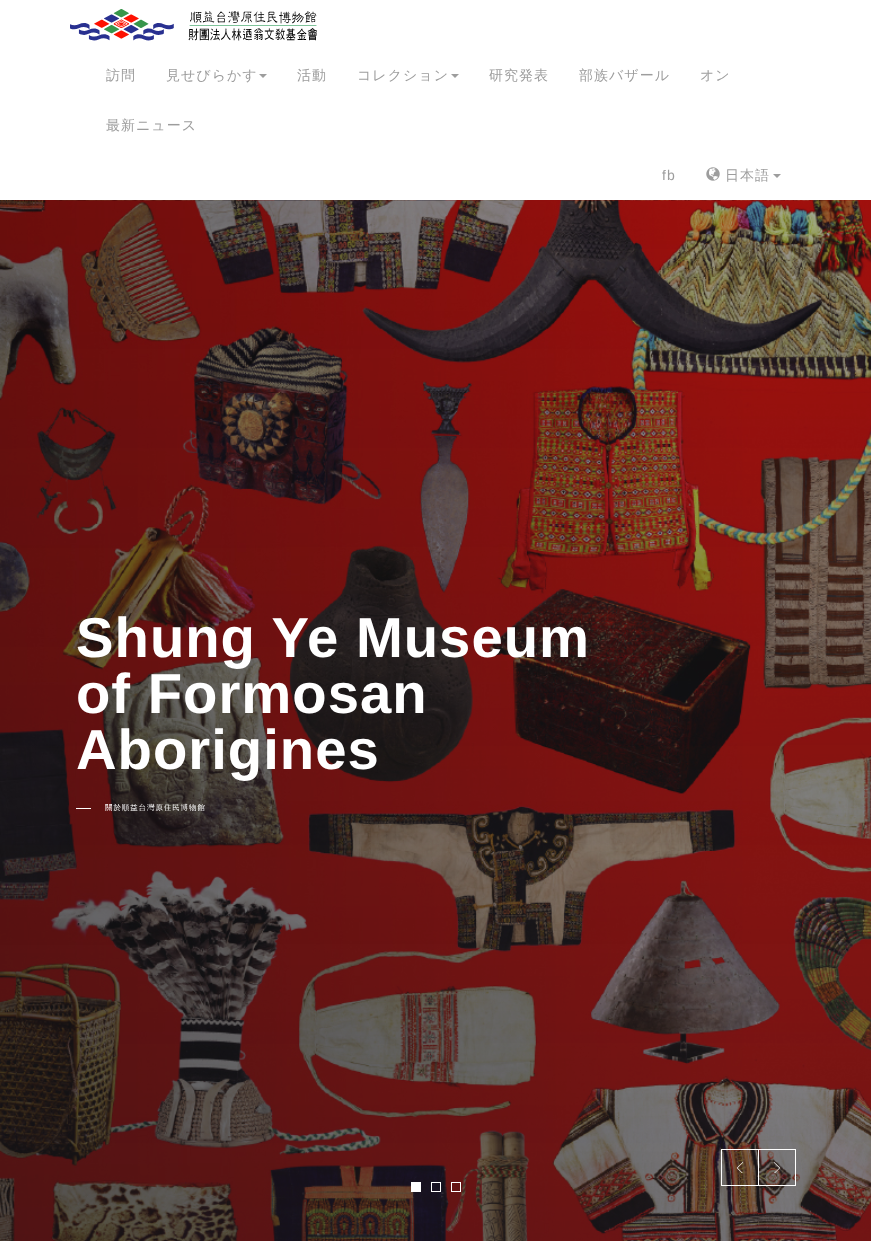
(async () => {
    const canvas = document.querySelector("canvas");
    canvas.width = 871;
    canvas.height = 1241;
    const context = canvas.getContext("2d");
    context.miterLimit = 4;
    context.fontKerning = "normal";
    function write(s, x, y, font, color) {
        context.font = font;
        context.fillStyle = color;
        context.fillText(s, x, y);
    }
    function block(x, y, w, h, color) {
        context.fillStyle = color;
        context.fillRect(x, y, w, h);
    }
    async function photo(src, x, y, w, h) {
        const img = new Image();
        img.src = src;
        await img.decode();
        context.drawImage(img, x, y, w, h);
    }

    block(0, 0, 871, 1241, "rgb(255, 255, 255)");
    await photo("media/1.png", 70, 9, 247, 32);
    context.letterSpacing = "1px";
    write("訪問", 106, 80, "500 14px WenQuanYi Zen Hei", "rgb(157, 157, 157)");
    write("見せびらかす", 166, 80, "500 14px WenQuanYi Zen Hei", "rgb(157, 157, 157)");
    context.beginPath();
    context.moveTo(259, 74);
    context.lineTo(267, 74);
    context.lineTo(263, 78);
    context.closePath();
    context.fill();
    write("活動", 297, 80, "500 14px WenQuanYi Zen Hei", "rgb(157, 157, 157)");
    write("コレクション", 357, 80, "500 14px WenQuanYi Zen Hei", "rgb(157, 157, 157)");
    context.beginPath();
    context.moveTo(451, 74);
    context.lineTo(459, 74);
    context.lineTo(455, 78);
    context.closePath();
    context.fill();
    write("研究発表", 489, 80, "500 14px WenQuanYi Zen Hei", "rgb(157, 157, 157)");
    write("部族バザール", 579, 80, "500 14px WenQuanYi Zen Hei", "rgb(157, 157, 157)");
    write("オン", 700, 80, "500 14px WenQuanYi Zen Hei", "rgb(157, 157, 157)");
    write("最新ニュース", 106, 130, "500 14px WenQuanYi Zen Hei", "rgb(157, 157, 157)");
    write("fb", 662, 180, "14px Liberation Sans", "rgb(157, 157, 157)");
    await photo("media/2.png", 706, 167, 14, 14);
    write("日本語", 725, 180, "500 14px WenQuanYi Zen Hei", "rgb(157, 157, 157)");
    context.beginPath();
    context.moveTo(773, 174);
    context.lineTo(781, 174);
    context.lineTo(777, 178);
    context.closePath();
    context.fill();
    await photo("media/3.png", 0, 200, 871, 1041);
    write("Shung Ye Museum", 76, 657, "bold 56.25px Liberation Sans", "rgb(255, 255, 255)");
    write("of Formosan", 76, 713, "bold 56.25px Liberation Sans", "rgb(255, 255, 255)");
    write("Aborigines", 76, 769, "bold 56.25px Liberation Sans", "rgb(255, 255, 255)");
    block(76, 808, 15, 1, "rgb(255, 255, 255)");
    context.letterSpacing = "0.9px";
    write("關於順益台灣原住民博物館", 105, 810, "500 7.5px WenQuanYi Zen Hei", "rgb(255, 255, 255)");
    context.strokeStyle = "rgb(255, 255, 255)";
    context.strokeRect(721.5, 1149.5, 37, 36);
    await photo("media/4.png", 736, 1162, 8, 11);
    block(759, 1149, 37, 1, "rgb(255, 255, 255)");
    block(795, 1149, 1, 37, "rgb(255, 255, 255)");
    block(759, 1185, 37, 1, "rgb(255, 255, 255)");
    await photo("media/5.png", 773, 1162, 8, 11);
    block(411, 1182, 10, 10, "rgb(255, 255, 255)");
    context.strokeRect(431.5, 1182.5, 9, 9);
    context.strokeRect(451.5, 1182.5, 9, 9);
})();
